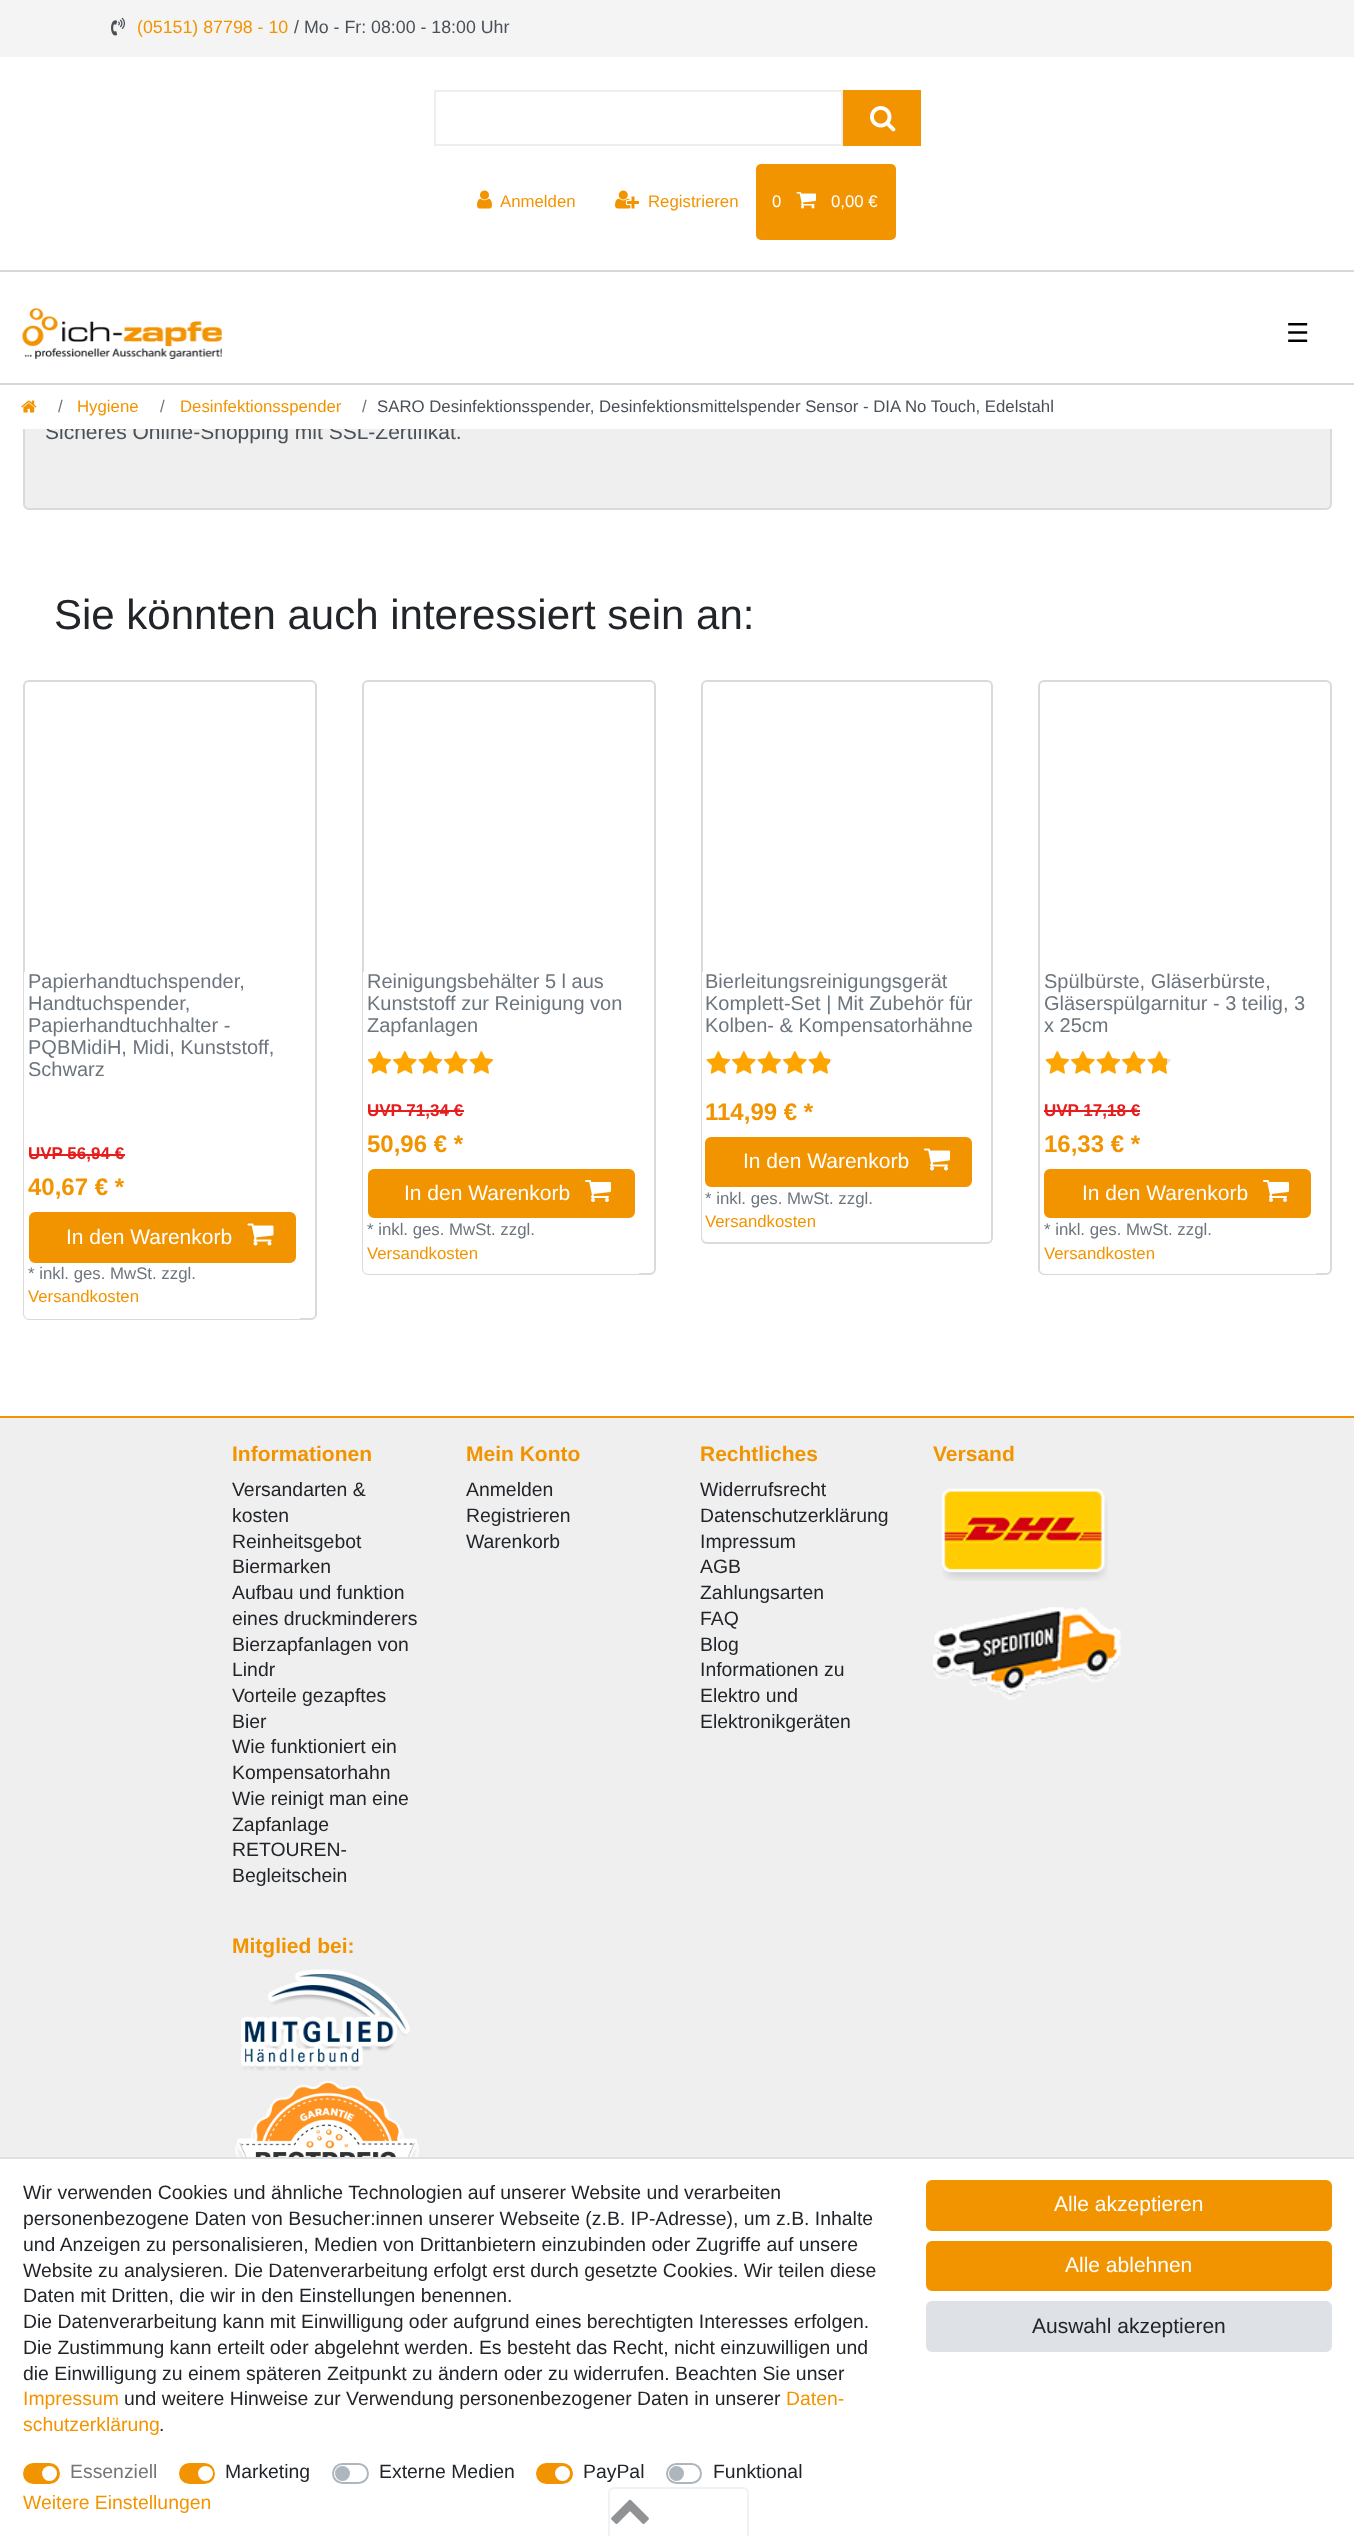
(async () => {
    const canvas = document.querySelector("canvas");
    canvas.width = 1354;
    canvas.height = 2536;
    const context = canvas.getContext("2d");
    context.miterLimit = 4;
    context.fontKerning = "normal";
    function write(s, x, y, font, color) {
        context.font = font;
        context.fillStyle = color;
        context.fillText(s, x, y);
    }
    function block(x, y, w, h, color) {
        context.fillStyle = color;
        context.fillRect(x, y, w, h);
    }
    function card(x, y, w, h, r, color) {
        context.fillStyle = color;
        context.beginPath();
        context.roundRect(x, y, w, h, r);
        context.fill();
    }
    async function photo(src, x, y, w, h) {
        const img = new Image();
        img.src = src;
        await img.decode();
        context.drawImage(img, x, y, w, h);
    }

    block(0, 0, 1354, 2536, "rgb(255, 255, 255)");
    block(0, 0, 1354, 57, "rgb(244, 244, 244)");
    await photo("media/1.png", 111, 17, 14, 19);
    write("(05151) 87798 - 10", 137, 33, "17.8px Liberation Sans", "rgb(242, 148, 0)");
    write("/ Mo - Fr: 08:00 - 18:00 Uhr", 294, 33, "17.8px Liberation Sans", "rgb(73, 80, 87)");
    block(0, 270, 1354, 2, "rgb(216, 216, 216)");
    context.strokeStyle = "rgb(238, 238, 238)";
    context.lineWidth = 2;
    context.strokeRect(435, 91, 407, 54);
    block(843, 90, 78, 56, "rgb(242, 148, 0)");
    await photo("media/2.png", 870, 106, 26, 26);
    await photo("media/3.png", 477, 190, 15, 19);
    write("Anmelden", 500, 207, "16.8px Liberation Sans", "rgb(242, 148, 0)");
    await photo("media/4.png", 615, 190, 24, 19);
    write("Registrieren", 648, 207, "16.8px Liberation Sans", "rgb(242, 148, 0)");
    card(756, 164, 140, 76, 5, "rgb(242, 148, 0)");
    write("0", 772, 207, "16.8px Liberation Sans", "rgb(255, 255, 255)");
    await photo("media/5.png", 796, 192, 20, 17);
    write("0,00 €", 831, 207, "16.8px Liberation Sans", "rgb(255, 255, 255)");
    context.fillStyle = "rgb(239, 239, 239)";
    context.beginPath();
    context.roundRect(24, 316, 1307, 193, 5);
    context.fill();
    context.strokeStyle = "rgb(218, 218, 218)";
    context.stroke();
    block(23, 315, 1309, 68, "rgb(255, 255, 255)");
    block(0, 383, 1354, 2, "rgb(216, 216, 216)");
    await photo("media/6.png", 22, 308, 200, 51);
    write("☰", 1286, 342, "26px DejaVu Sans", "rgb(0, 0, 0)");
    write("Sicheres Online-Shopping mit SSL-Zertifikat.", 45, 439, "21px Liberation Sans", "rgb(73, 80, 87)");
    block(23, 385, 1309, 44, "rgb(255, 255, 255)");
    await photo("media/7.png", 21, 400, 16, 13);
    write("/", 58, 412, "16.8px Liberation Sans", "rgb(108, 117, 125)");
    write("Hygiene", 77, 412, "16.8px Liberation Sans", "rgb(242, 148, 0)");
    write("/", 160, 412, "16.8px Liberation Sans", "rgb(108, 117, 125)");
    write("Desinfektionsspender", 180, 412, "16.8px Liberation Sans", "rgb(242, 148, 0)");
    write("/", 362, 412, "16.8px Liberation Sans", "rgb(108, 117, 125)");
    write("SARO Desinfektionsspender, Desinfektionsmittelspender Sensor - DIA No Touch, Edelstahl", 377, 412, "16.8px Liberation Sans", "rgb(73, 80, 87)");
    write("Sie könnten auch interessiert sein an:", 54, 629, "42px Liberation Sans", "rgb(33, 37, 41)");
    context.beginPath();
    context.roundRect(24, 681, 292, 638, 5);
    context.stroke();
    context.fillStyle = "rgb(255, 255, 255)";
    context.beginPath();
    context.roundRect(24, 972, 276, 347, [0, 0, 0, 5]);
    context.fill();
    write("Papierhandtuchspender,", 28, 988, "20px Liberation Sans", "rgb(108, 117, 125)");
    write("Handtuchspender,", 28, 1010, "20px Liberation Sans", "rgb(108, 117, 125)");
    write("Papierhandtuchhalter -", 28, 1032, "20px Liberation Sans", "rgb(108, 117, 125)");
    write("PQBMidiH, Midi, Kunststoff,", 28, 1054, "20px Liberation Sans", "rgb(108, 117, 125)");
    write("Schwarz", 28, 1076, "20px Liberation Sans", "rgb(108, 117, 125)");
    write("UVP 56,94 €", 28, 1159, "bold 17px Liberation Sans", "rgb(230, 29, 29)");
    block(29, 1154, 96, 2, "rgb(230, 29, 29)");
    write("40,67 € *", 28, 1195, "bold 24px Liberation Sans", "rgb(242, 148, 0)");
    context.beginPath();
    context.roundRect(30, 1213, 265, 49, 5);
    context.fill();
    context.strokeStyle = "rgb(242, 148, 0)";
    context.stroke();
    write("In den Warenkorb", 66, 1244, "21px Liberation Sans", "rgb(255, 255, 255)");
    await photo("media/8.png", 247, 1223, 27, 23);
    write("* inkl. ges. MwSt. zzgl.", 28, 1279, "16.8px Liberation Sans", "rgb(108, 117, 125)");
    write("Versandkosten", 28, 1302, "16.8px Liberation Sans", "rgb(242, 148, 0)");
    context.beginPath();
    context.roundRect(363, 681, 292, 593, 5);
    context.strokeStyle = "rgb(218, 218, 218)";
    context.stroke();
    context.fillStyle = "rgb(255, 255, 255)";
    context.beginPath();
    context.roundRect(363, 972, 276, 302, [0, 0, 0, 5]);
    context.fill();
    write("Reinigungsbehälter 5 l aus", 367, 988, "20px Liberation Sans", "rgb(108, 117, 125)");
    write("Kunststoff zur Reinigung von", 367, 1010, "20px Liberation Sans", "rgb(108, 117, 125)");
    write("Zapfanlagen", 367, 1032, "20px Liberation Sans", "rgb(108, 117, 125)");
    await photo("media/9.png", 368, 1051, 23, 23);
    await photo("media/10.png", 393, 1051, 24, 23);
    await photo("media/11.png", 418, 1051, 24, 23);
    await photo("media/10.png", 444, 1051, 24, 23);
    await photo("media/11.png", 469, 1051, 24, 23);
    await photo("media/12.png", 368, 1051, 24, 23);
    await photo("media/13.png", 393, 1051, 24, 23);
    await photo("media/14.png", 418, 1051, 25, 23);
    await photo("media/13.png", 444, 1051, 24, 23);
    await photo("media/14.png", 469, 1051, 25, 23);
    write("UVP 71,34 €", 367, 1116, "bold 17px Liberation Sans", "rgb(230, 29, 29)");
    block(368, 1110, 96, 2, "rgb(230, 29, 29)");
    write("50,96 € *", 367, 1152, "bold 24px Liberation Sans", "rgb(242, 148, 0)");
    context.beginPath();
    context.roundRect(369, 1170, 265, 47, 5);
    context.fill();
    context.strokeStyle = "rgb(242, 148, 0)";
    context.stroke();
    write("In den Warenkorb", 404, 1200, "21px Liberation Sans", "rgb(255, 255, 255)");
    await photo("media/15.png", 585, 1180, 26, 22);
    write("* inkl. ges. MwSt. zzgl.", 367, 1235, "16.8px Liberation Sans", "rgb(108, 117, 125)");
    write("Versandkosten", 367, 1259, "16.8px Liberation Sans", "rgb(242, 148, 0)");
    context.beginPath();
    context.roundRect(702, 681, 290, 562, 5);
    context.strokeStyle = "rgb(218, 218, 218)";
    context.stroke();
    context.fillStyle = "rgb(255, 255, 255)";
    context.beginPath();
    context.roundRect(702, 972, 275, 270, [0, 0, 0, 5]);
    context.fill();
    write("Bierleitungsreinigungsgerät", 705, 988, "20px Liberation Sans", "rgb(108, 117, 125)");
    write("Komplett-Set | Mit Zubehör für", 705, 1010, "20px Liberation Sans", "rgb(108, 117, 125)");
    write("Kolben- & Kompensatorhähne", 705, 1032, "20px Liberation Sans", "rgb(108, 117, 125)");
    await photo("media/11.png", 706, 1051, 24, 23);
    await photo("media/10.png", 732, 1051, 24, 23);
    await photo("media/11.png", 757, 1051, 24, 23);
    await photo("media/10.png", 783, 1051, 24, 23);
    await photo("media/11.png", 808, 1051, 24, 23);
    await photo("media/14.png", 706, 1051, 25, 23);
    await photo("media/13.png", 732, 1051, 24, 23);
    await photo("media/14.png", 757, 1051, 25, 23);
    await photo("media/13.png", 783, 1051, 24, 23);
    await photo("media/16.png", 808, 1051, 22, 23);
    write("114,99 € *", 705, 1120, "bold 24px Liberation Sans", "rgb(242, 148, 0)");
    context.beginPath();
    context.roundRect(706, 1138, 265, 48, 5);
    context.fill();
    context.strokeStyle = "rgb(242, 148, 0)";
    context.stroke();
    write("In den Warenkorb", 743, 1168, "21px Liberation Sans", "rgb(255, 255, 255)");
    await photo("media/17.png", 924, 1148, 26, 23);
    write("* inkl. ges. MwSt. zzgl.", 705, 1204, "16.8px Liberation Sans", "rgb(108, 117, 125)");
    write("Versandkosten", 705, 1227, "16.8px Liberation Sans", "rgb(242, 148, 0)");
    context.beginPath();
    context.roundRect(1039, 681, 292, 593, 5);
    context.strokeStyle = "rgb(218, 218, 218)";
    context.stroke();
    context.fillStyle = "rgb(255, 255, 255)";
    context.beginPath();
    context.roundRect(1040, 972, 276, 302, [0, 0, 0, 5]);
    context.fill();
    write("Spülbürste, Gläserbürste,", 1044, 988, "20px Liberation Sans", "rgb(108, 117, 125)");
    write("Gläserspülgarnitur - 3 teilig, 3", 1044, 1010, "20px Liberation Sans", "rgb(108, 117, 125)");
    write("x 25cm", 1044, 1032, "20px Liberation Sans", "rgb(108, 117, 125)");
    await photo("media/11.png", 1045, 1051, 24, 23);
    await photo("media/10.png", 1071, 1051, 24, 23);
    await photo("media/11.png", 1096, 1051, 24, 23);
    await photo("media/10.png", 1122, 1051, 24, 23);
    await photo("media/11.png", 1147, 1051, 24, 23);
    await photo("media/14.png", 1045, 1051, 25, 23);
    await photo("media/13.png", 1071, 1051, 24, 23);
    await photo("media/14.png", 1096, 1051, 25, 23);
    await photo("media/13.png", 1122, 1051, 24, 23);
    await photo("media/18.png", 1147, 1051, 20, 23);
    write("UVP 17,18 €", 1044, 1116, "bold 17px Liberation Sans", "rgb(230, 29, 29)");
    block(1044, 1110, 96, 2, "rgb(230, 29, 29)");
    write("16,33 € *", 1044, 1152, "bold 24px Liberation Sans", "rgb(242, 148, 0)");
    context.beginPath();
    context.roundRect(1045, 1170, 265, 47, 5);
    context.fill();
    context.strokeStyle = "rgb(242, 148, 0)";
    context.stroke();
    write("In den Warenkorb", 1082, 1200, "21px Liberation Sans", "rgb(255, 255, 255)");
    await photo("media/15.png", 1263, 1180, 26, 22);
    write("* inkl. ges. MwSt. zzgl.", 1044, 1235, "16.8px Liberation Sans", "rgb(108, 117, 125)");
    write("Versandkosten", 1044, 1259, "16.8px Liberation Sans", "rgb(242, 148, 0)");
    block(0, 1418, 1354, 739, "rgb(239, 239, 239)");
    block(0, 1416, 1354, 2, "rgb(242, 148, 0)");
    write("Informationen", 232, 1461, "bold 21px Liberation Sans", "rgb(242, 148, 0)");
    write("Versandarten &", 232, 1496, "19.4px Liberation Sans", "rgb(33, 37, 41)");
    write("kosten", 232, 1522, "19.4px Liberation Sans", "rgb(33, 37, 41)");
    write("Reinheitsgebot", 232, 1548, "19.4px Liberation Sans", "rgb(33, 37, 41)");
    write("Biermarken", 232, 1573, "19.4px Liberation Sans", "rgb(33, 37, 41)");
    write("Aufbau und funktion", 232, 1599, "19.4px Liberation Sans", "rgb(33, 37, 41)");
    write("eines druckminderers", 232, 1625, "19.4px Liberation Sans", "rgb(33, 37, 41)");
    write("Bierzapfanlagen von", 232, 1651, "19.4px Liberation Sans", "rgb(33, 37, 41)");
    write("Lindr", 232, 1676, "19.4px Liberation Sans", "rgb(33, 37, 41)");
    write("Vorteile gezapftes", 232, 1702, "19.4px Liberation Sans", "rgb(33, 37, 41)");
    write("Bier", 232, 1728, "19.4px Liberation Sans", "rgb(33, 37, 41)");
    write("Wie funktioniert ein", 232, 1753, "19.4px Liberation Sans", "rgb(33, 37, 41)");
    write("Kompensatorhahn", 232, 1779, "19.4px Liberation Sans", "rgb(33, 37, 41)");
    write("Wie reinigt man eine", 232, 1805, "19.4px Liberation Sans", "rgb(33, 37, 41)");
    write("Zapfanlage", 232, 1831, "19.4px Liberation Sans", "rgb(33, 37, 41)");
    write("RETOUREN-", 232, 1856, "19.4px Liberation Sans", "rgb(33, 37, 41)");
    write("Begleitschein", 232, 1882, "19.4px Liberation Sans", "rgb(33, 37, 41)");
    write("Mein Konto", 466, 1461, "bold 21px Liberation Sans", "rgb(242, 148, 0)");
    write("Anmelden", 466, 1496, "19.4px Liberation Sans", "rgb(33, 37, 41)");
    write("Registrieren", 466, 1522, "19.4px Liberation Sans", "rgb(33, 37, 41)");
    write("Warenkorb", 466, 1548, "19.4px Liberation Sans", "rgb(33, 37, 41)");
    write("Rechtliches", 700, 1461, "bold 21px Liberation Sans", "rgb(242, 148, 0)");
    write("Widerrufsrecht", 700, 1496, "19.4px Liberation Sans", "rgb(33, 37, 41)");
    write("Datenschutzerklärung", 700, 1522, "19.4px Liberation Sans", "rgb(33, 37, 41)");
    write("Impressum", 700, 1548, "19.4px Liberation Sans", "rgb(33, 37, 41)");
    write("AGB", 700, 1573, "19.4px Liberation Sans", "rgb(33, 37, 41)");
    write("Zahlungsarten", 700, 1599, "19.4px Liberation Sans", "rgb(33, 37, 41)");
    write("FAQ", 700, 1625, "19.4px Liberation Sans", "rgb(33, 37, 41)");
    write("Blog", 700, 1651, "19.4px Liberation Sans", "rgb(33, 37, 41)");
    write("Informationen zu", 700, 1676, "19.4px Liberation Sans", "rgb(33, 37, 41)");
    write("Elektro und", 700, 1702, "19.4px Liberation Sans", "rgb(33, 37, 41)");
    write("Elektronikgeräten", 700, 1728, "19.4px Liberation Sans", "rgb(33, 37, 41)");
    write("Versand", 933, 1461, "bold 21px Liberation Sans", "rgb(242, 148, 0)");
    await photo("media/19.png", 942, 1488, 166, 93);
    await photo("media/20.png", 933, 1607, 188, 93);
    write("Mitglied bei:", 232, 1953, "bold 21px Liberation Sans", "rgb(242, 148, 0)");
    await photo("media/21.png", 241, 1969, 169, 102);
    await photo("media/22.png", 235, 2081, 184, 76);
    block(0, 2157, 1354, 2, "rgb(222, 226, 230)");
    write("Wir verwenden Cookies und ähnliche Technologien auf unserer Website und verarbeiten", 23, 2199, "19.4px Liberation Sans", "rgb(33, 37, 41)");
    write("personenbezogene Daten von Besucher:innen unserer Webseite (z.B. IP-Adresse), um z.B. Inhalte", 23, 2225, "19.4px Liberation Sans", "rgb(33, 37, 41)");
    write("und Anzeigen zu personalisieren, Medien von Drittanbietern einzubinden oder Zugriffe auf unsere", 23, 2251, "19.4px Liberation Sans", "rgb(33, 37, 41)");
    write("Website zu analysieren. Die Datenverarbeitung erfolgt erst durch gesetzte Cookies. Wir teilen diese", 23, 2277, "19.4px Liberation Sans", "rgb(33, 37, 41)");
    write("Daten mit Dritten, die wir in den Einstellungen benennen.", 23, 2302, "19.4px Liberation Sans", "rgb(33, 37, 41)");
    write("Die Datenverarbeitung kann mit Einwilligung oder aufgrund eines berechtigten Interesses erfolgen.", 23, 2328, "19.4px Liberation Sans", "rgb(33, 37, 41)");
    write("Die Zustimmung kann erteilt oder abgelehnt werden. Es besteht das Recht, nicht einzuwilligen und", 23, 2354, "19.4px Liberation Sans", "rgb(33, 37, 41)");
    write("die Einwilligung zu einem späteren Zeitpunkt zu ändern oder zu widerrufen. Beachten Sie unser", 23, 2380, "19.4px Liberation Sans", "rgb(33, 37, 41)");
    write("Impressum", 23, 2405, "19.4px Liberation Sans", "rgb(242, 148, 0)");
    write("und weitere Hinweise zur Verwendung personenbezogener Daten in unserer", 124, 2405, "19.4px Liberation Sans", "rgb(33, 37, 41)");
    write("Daten-", 786, 2405, "19.4px Liberation Sans", "rgb(242, 148, 0)");
    write("schutzerklärung", 23, 2431, "19.4px Liberation Sans", "rgb(242, 148, 0)");
    write(".", 159, 2431, "19.4px Liberation Sans", "rgb(33, 37, 41)");
    context.fillStyle = "rgb(242, 148, 0)";
    context.beginPath();
    context.roundRect(24, 2464, 35, 19, 9.5);
    context.fill();
    context.stroke();
    write("Essenziell", 70, 2478, "19.4px Liberation Sans", "rgb(118, 118, 118)");
    context.fillStyle = "rgb(255, 255, 255)";
    context.beginPath();
    context.arc(49.5, 2473.5, 7.5, 0, Math.PI * 2);
    context.fill();
    context.fillStyle = "rgb(242, 148, 0)";
    context.beginPath();
    context.roundRect(180, 2464, 34, 19, 9.5);
    context.fill();
    context.stroke();
    write("Marketing", 225, 2478, "19.4px Liberation Sans", "rgb(33, 37, 41)");
    context.fillStyle = "rgb(255, 255, 255)";
    context.beginPath();
    context.arc(205.5, 2473.5, 7.5, 0, Math.PI * 2);
    context.fill();
    context.beginPath();
    context.roundRect(333, 2464, 35, 19, 9.5);
    context.strokeStyle = "rgb(173, 181, 189)";
    context.stroke();
    write("Externe Medien", 379, 2478, "19.4px Liberation Sans", "rgb(33, 37, 41)");
    context.fillStyle = "rgb(173, 181, 189)";
    context.beginPath();
    context.arc(342.5, 2473.5, 7.5, 0, Math.PI * 2);
    context.fill();
    context.fillStyle = "rgb(242, 148, 0)";
    context.beginPath();
    context.roundRect(537, 2464, 35, 19, 9.5);
    context.fill();
    context.strokeStyle = "rgb(242, 148, 0)";
    context.stroke();
    write("PayPal", 583, 2478, "19.4px Liberation Sans", "rgb(33, 37, 41)");
    context.fillStyle = "rgb(255, 255, 255)";
    context.beginPath();
    context.arc(562.5, 2473.5, 7.5, 0, Math.PI * 2);
    context.fill();
    context.beginPath();
    context.roundRect(667, 2464, 34, 19, 9.5);
    context.strokeStyle = "rgb(173, 181, 189)";
    context.stroke();
    write("Funktional", 713, 2478, "19.4px Liberation Sans", "rgb(33, 37, 41)");
    context.fillStyle = "rgb(173, 181, 189)";
    context.beginPath();
    context.arc(676.5, 2473.5, 7.5, 0, Math.PI * 2);
    context.fill();
    write("Weitere Einstellungen", 23, 2509, "19.4px Liberation Sans", "rgb(242, 148, 0)");
    context.beginPath();
    context.roundRect(927, 2181, 404, 49, 5);
    context.fill();
    context.strokeStyle = "rgb(242, 148, 0)";
    context.stroke();
    write("Alle akzeptieren", 1054, 2211, "21px Liberation Sans", "rgb(255, 255, 255)");
    context.fillStyle = "rgb(242, 148, 0)";
    context.beginPath();
    context.roundRect(927, 2242, 404, 48, 5);
    context.fill();
    context.stroke();
    write("Alle ablehnen", 1065, 2272, "21px Liberation Sans", "rgb(255, 255, 255)");
    context.fillStyle = "rgb(222, 226, 230)";
    context.beginPath();
    context.roundRect(927, 2302, 404, 49, 5);
    context.fill();
    context.strokeStyle = "rgb(222, 226, 230)";
    context.stroke();
    write("Auswahl akzeptieren", 1032, 2333, "21px Liberation Sans", "rgb(33, 37, 41)");
    context.beginPath();
    context.roundRect(609, 2488, 139, 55, 5);
    context.strokeStyle = "rgb(239, 241, 243)";
    context.stroke();
    await photo("media/23.png", 611, 2499, 38, 25);
})();
